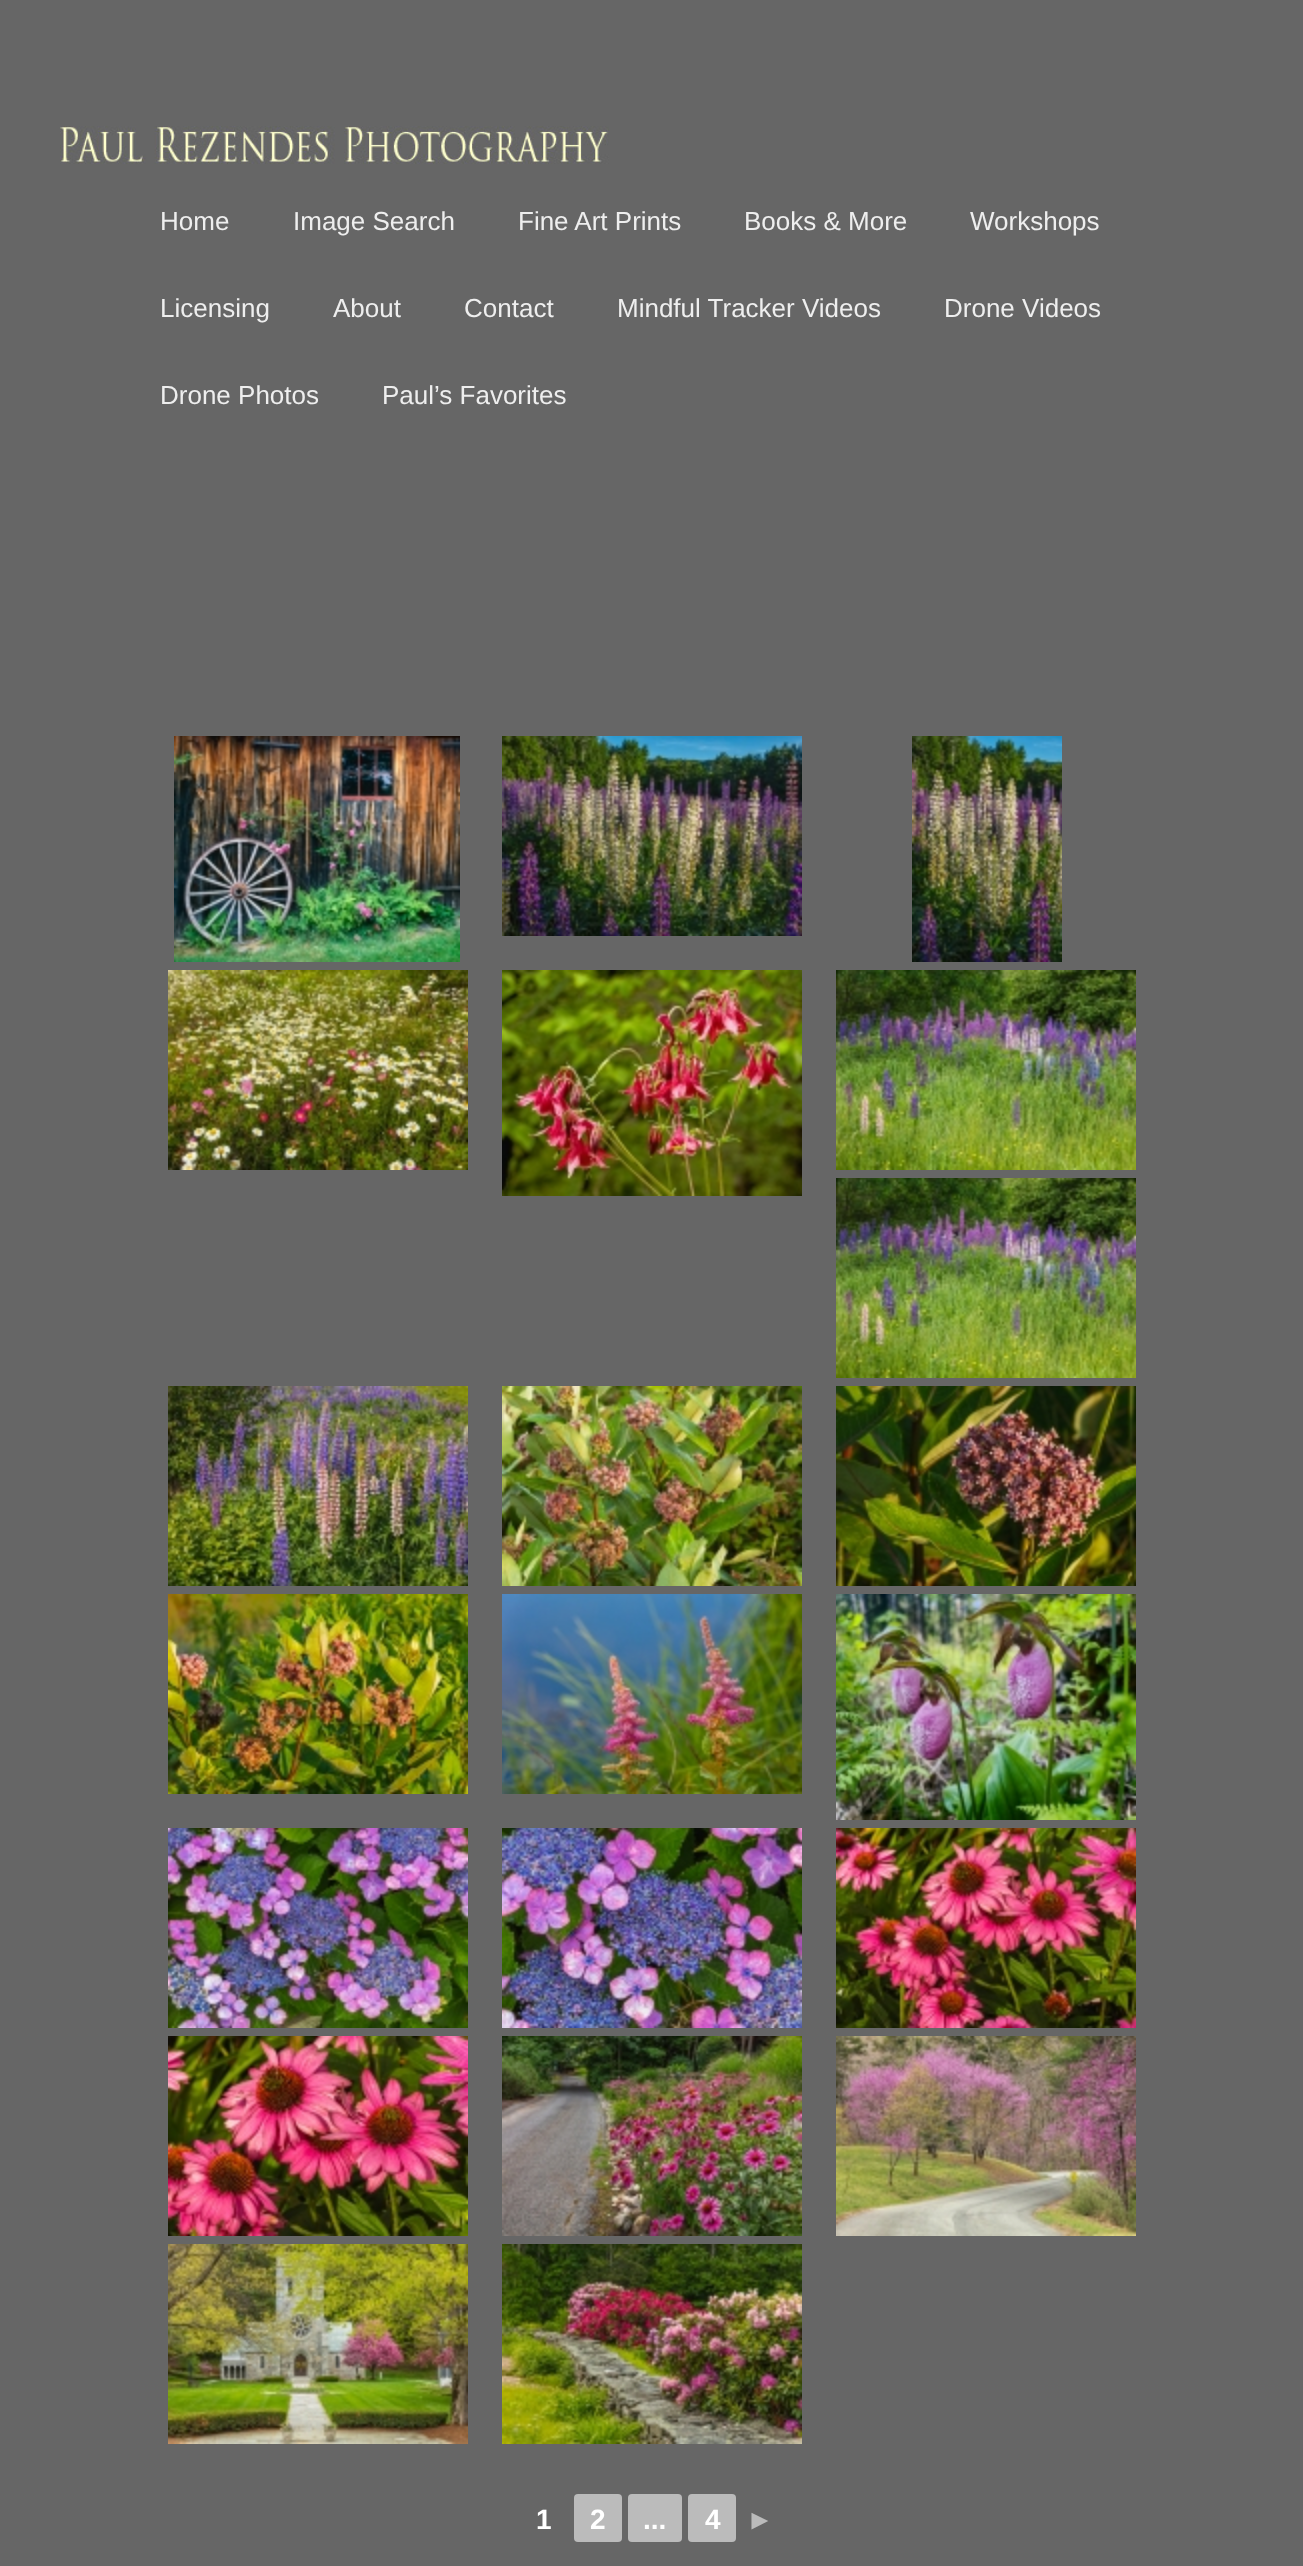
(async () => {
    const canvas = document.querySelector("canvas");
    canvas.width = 1303;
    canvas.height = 2566;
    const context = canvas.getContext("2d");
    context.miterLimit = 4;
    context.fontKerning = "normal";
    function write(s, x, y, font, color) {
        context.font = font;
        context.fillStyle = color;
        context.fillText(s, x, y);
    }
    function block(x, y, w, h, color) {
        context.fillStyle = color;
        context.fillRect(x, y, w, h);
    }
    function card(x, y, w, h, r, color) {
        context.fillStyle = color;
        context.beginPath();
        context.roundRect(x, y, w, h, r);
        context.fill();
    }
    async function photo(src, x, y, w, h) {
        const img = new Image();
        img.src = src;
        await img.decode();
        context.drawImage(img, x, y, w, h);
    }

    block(0, 0, 1303, 2566, "rgb(102, 102, 102)");
    await photo("media/1.png", 60, 126, 549, 38);
    write("Home", 160, 230, "26px Liberation Sans", "rgb(238, 238, 238)");
    write("Image Search", 293, 230, "26px Liberation Sans", "rgb(238, 238, 238)");
    write("Fine Art Prints", 518, 230, "26px Liberation Sans", "rgb(238, 238, 238)");
    write("Books & More", 744, 230, "26px Liberation Sans", "rgb(238, 238, 238)");
    write("Workshops", 970, 230, "26px Liberation Sans", "rgb(238, 238, 238)");
    write("Licensing", 160, 317, "26px Liberation Sans", "rgb(238, 238, 238)");
    write("About", 333, 317, "26px Liberation Sans", "rgb(238, 238, 238)");
    write("Contact", 464, 317, "26px Liberation Sans", "rgb(238, 238, 238)");
    write("Mindful Tracker Videos", 617, 317, "26px Liberation Sans", "rgb(238, 238, 238)");
    write("Drone Videos", 944, 317, "26px Liberation Sans", "rgb(238, 238, 238)");
    write("Drone Photos", 160, 404, "26px Liberation Sans", "rgb(238, 238, 238)");
    write("Paul’s Favorites", 382, 404, "26px Liberation Sans", "rgb(238, 238, 238)");
    await photo("media/2.png", 174, 736, 286, 226);
    await photo("media/3.png", 502, 736, 300, 200);
    await photo("media/4.png", 912, 736, 150, 226);
    await photo("media/5.png", 168, 970, 300, 200);
    await photo("media/6.png", 502, 970, 300, 226);
    await photo("media/7.png", 836, 970, 300, 200);
    await photo("media/8.png", 836, 1178, 300, 200);
    await photo("media/9.png", 168, 1386, 300, 200);
    await photo("media/10.png", 502, 1386, 300, 200);
    await photo("media/11.png", 836, 1386, 300, 200);
    await photo("media/12.png", 168, 1594, 300, 200);
    await photo("media/13.png", 502, 1594, 300, 200);
    await photo("media/14.png", 836, 1594, 300, 226);
    await photo("media/15.png", 168, 1828, 300, 200);
    await photo("media/16.png", 502, 1828, 300, 200);
    await photo("media/17.png", 836, 1828, 300, 200);
    await photo("media/18.png", 168, 2036, 300, 200);
    await photo("media/19.png", 502, 2036, 300, 200);
    await photo("media/20.png", 836, 2036, 300, 200);
    await photo("media/21.png", 168, 2244, 300, 200);
    await photo("media/22.png", 502, 2244, 300, 200);
    write("1", 536, 2529, "bold 28px Liberation Sans", "rgb(255, 255, 255)");
    card(574, 2494, 48, 48, 4, "rgb(187, 187, 187)");
    write("2", 590, 2529, "bold 28px Liberation Sans", "rgb(255, 255, 255)");
    card(628, 2494, 54, 48, 4, "rgb(187, 187, 187)");
    write("...", 643, 2529, "bold 28px Liberation Sans", "rgb(255, 255, 255)");
    card(688, 2494, 48, 48, 4, "rgb(187, 187, 187)");
    write("4", 705, 2529, "bold 28px Liberation Sans", "rgb(255, 255, 255)");
    write("►", 746, 2529, "bold 28px Liberation Sans", "rgb(187, 187, 187)");
})();
